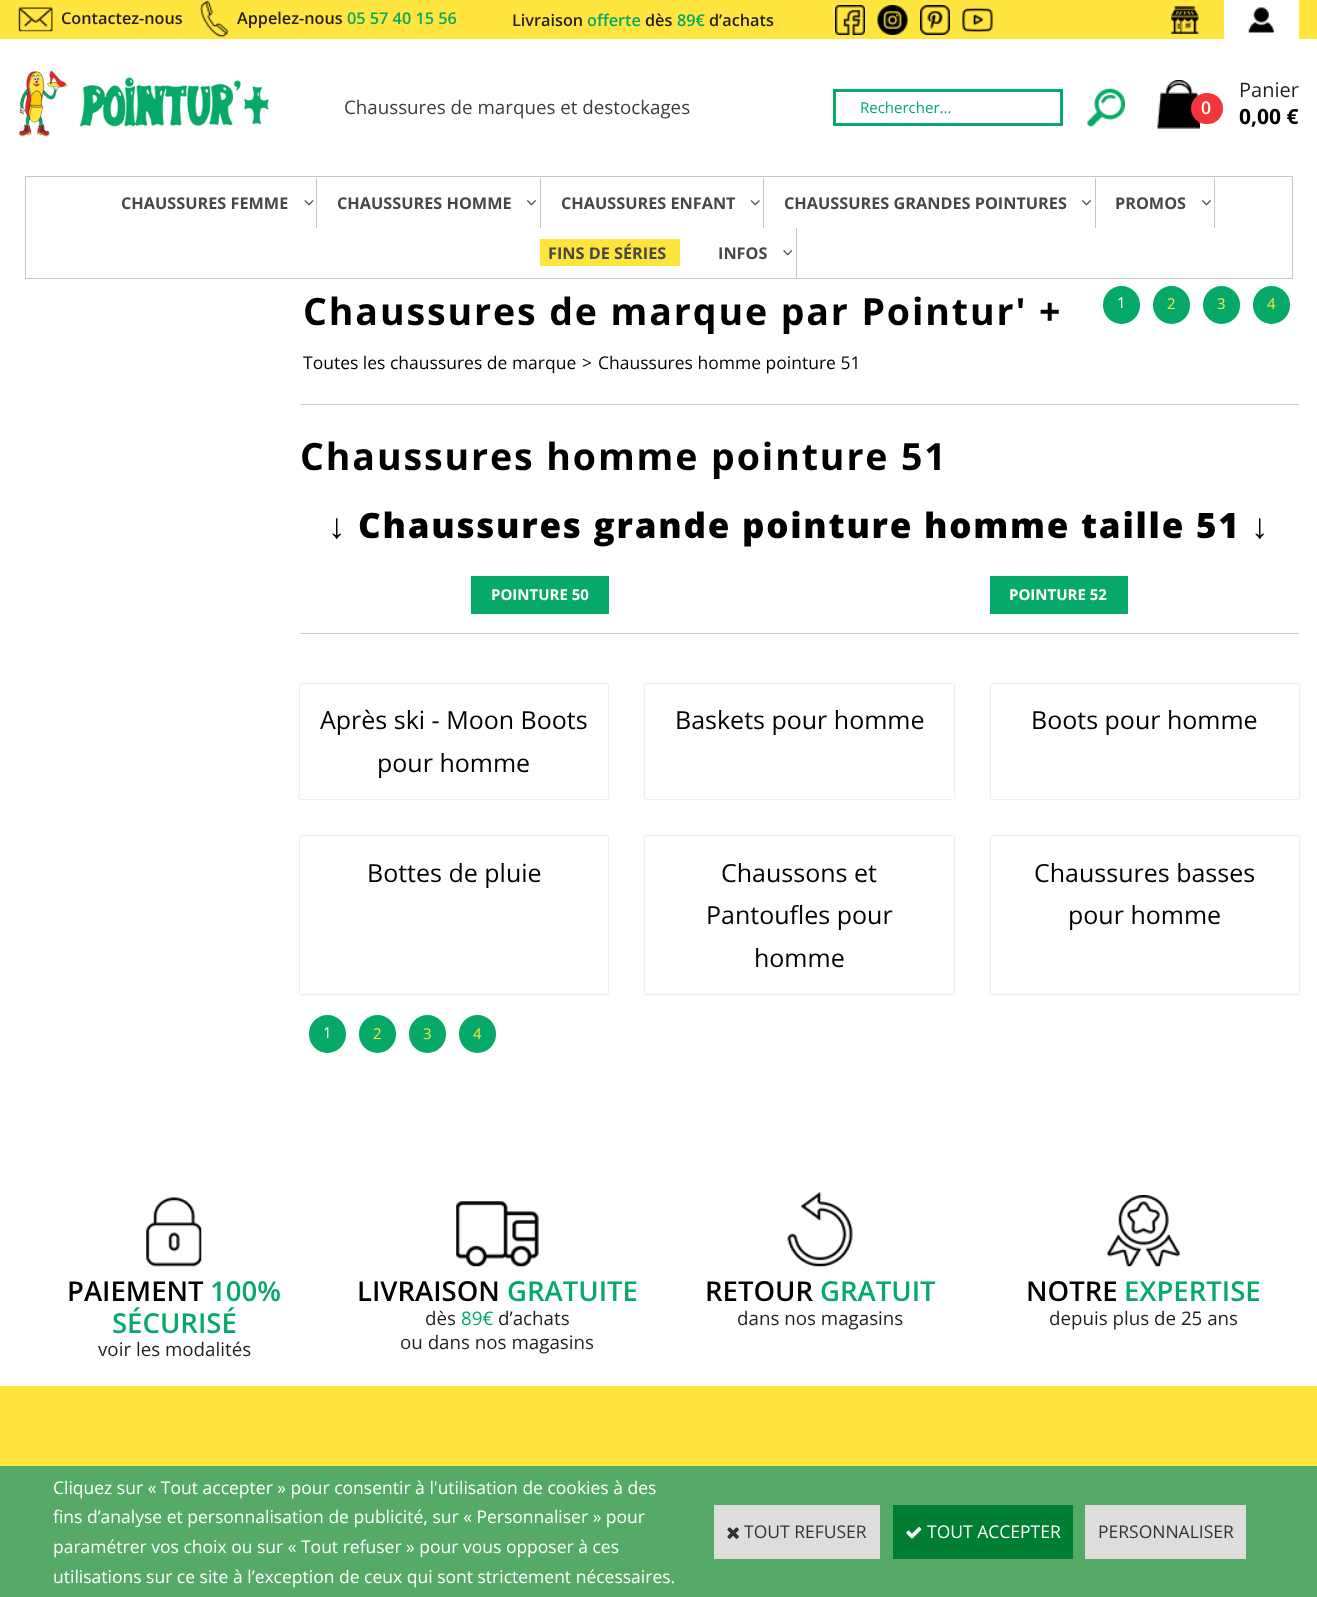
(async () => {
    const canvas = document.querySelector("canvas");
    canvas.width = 1317;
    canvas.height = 1597;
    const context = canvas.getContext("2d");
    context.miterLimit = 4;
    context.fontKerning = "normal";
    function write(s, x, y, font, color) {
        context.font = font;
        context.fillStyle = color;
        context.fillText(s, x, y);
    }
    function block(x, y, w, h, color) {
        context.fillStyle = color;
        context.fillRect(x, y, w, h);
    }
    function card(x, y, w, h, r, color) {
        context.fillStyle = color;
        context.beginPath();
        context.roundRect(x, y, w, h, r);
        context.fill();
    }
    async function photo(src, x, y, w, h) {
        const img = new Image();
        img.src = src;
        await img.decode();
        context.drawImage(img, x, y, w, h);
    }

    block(0, 0, 1317, 1597, "rgb(255, 255, 255)");
    block(0, 0, 1317, 39, "rgb(255, 229, 62)");
    await photo("media/1.png", 18, 7, 35, 25);
    write("Contactez-nous", 61, 24, "600 16.25px Open Sans", "rgb(35, 31, 32)");
    await photo("media/2.png", 200, 1, 29, 37);
    write("Appelez-nous", 237, 24, "600 16.25px Open Sans", "rgb(35, 31, 32)");
    write("05 57 40 15 56", 347, 24, "600 16.25px Open Sans", "rgb(6, 169, 103)");
    write("Livraison", 512, 26, "600 16.25px Open Sans", "rgb(35, 31, 32)");
    write("offerte", 587, 26, "600 16.25px Open Sans", "rgb(6, 169, 103)");
    write("dès", 645, 26, "600 16.25px Open Sans", "rgb(35, 31, 32)");
    write("89€", 677, 26, "600 16.25px Open Sans", "rgb(6, 169, 103)");
    write("d’achats", 709, 26, "600 16.25px Open Sans", "rgb(35, 31, 32)");
    await photo("media/3.png", 835, 5, 30, 30);
    await photo("media/4.png", 877, 5, 31, 30);
    await photo("media/5.png", 920, 5, 30, 30);
    await photo("media/6.png", 962, 7, 31, 26);
    await photo("media/7.png", 1171, 6, 28, 28);
    block(1224, 0, 75, 39, "rgb(255, 255, 255)");
    await photo("media/8.png", 1248, 7, 26, 26);
    await photo("media/9.png", 18, 70, 251, 67);
    write("Chaussures de marques et destockages", 344, 114, "18.75px Open Sans", "rgb(61, 61, 61)");
    context.strokeStyle = "rgb(6, 169, 103)";
    context.lineWidth = 3;
    context.strokeRect(834.5, 90.5, 227, 34);
    write("Rechercher...", 860, 113, "15px Open Sans", "rgb(6, 169, 103)");
    await photo("media/10.png", 1087, 88, 38, 39);
    await photo("media/11.png", 1157, 80, 43, 49);
    write("Panier", 1239, 97, "20px Open Sans", "rgb(35, 31, 32)");
    card(1191, 93, 32, 31, 15.5, "rgb(244, 53, 60)");
    write("0", 1201, 114, "600 17.5px Open Sans", "rgb(255, 255, 255)");
    write("0,00 €", 1239, 124, "bold 21px Open Sans", "rgb(1, 1, 1)");
    context.strokeStyle = "rgb(198, 198, 198)";
    context.lineWidth = 1;
    context.strokeRect(25.5, 176.5, 1267, 102);
    block(316, 178, 1, 50, "rgb(198, 198, 198)");
    write("CHAUSSURES FEMME", 121, 209, "bold 16.25px Open Sans", "rgb(71, 71, 71)");
    await photo("media/12.png", 304, 200, 10, 6);
    block(540, 178, 1, 50, "rgb(198, 198, 198)");
    write("CHAUSSURES HOMME", 337, 209, "bold 16.25px Open Sans", "rgb(71, 71, 71)");
    await photo("media/13.png", 527, 200, 9, 6);
    block(763, 178, 1, 50, "rgb(198, 198, 198)");
    write("CHAUSSURES ENFANT", 561, 209, "bold 16.25px Open Sans", "rgb(71, 71, 71)");
    await photo("media/14.png", 750, 200, 10, 6);
    block(1095, 178, 1, 50, "rgb(198, 198, 198)");
    write("CHAUSSURES GRANDES POINTURES", 784, 209, "bold 16.25px Open Sans", "rgb(71, 71, 71)");
    await photo("media/13.png", 1082, 200, 9, 6);
    block(1214, 178, 1, 50, "rgb(198, 198, 198)");
    write("PROMOS", 1115, 209, "bold 16.25px Open Sans", "rgb(71, 71, 71)");
    await photo("media/13.png", 1202, 200, 9, 6);
    block(540, 239, 140, 27, "rgb(253, 229, 60)");
    write("FINS DE SÉRIES", 548, 259, "bold 16.25px Open Sans", "rgb(71, 71, 71)");
    block(796, 228, 1, 50, "rgb(198, 198, 198)");
    write("INFOS", 718, 259, "bold 16.25px Open Sans", "rgb(71, 71, 71)");
    await photo("media/15.png", 783, 250, 10, 6);
    block(300, 404, 999, 1, "rgb(204, 204, 204)");
    context.letterSpacing = "1.9px";
    write("Chaussures de marque par Pointur' +", 303, 325, "bold 37.5px Open Sans", "rgb(1, 1, 1)");
    card(1103, 286, 37, 38, 18.5, "rgb(6, 169, 103)");
    context.letterSpacing = "0px";
    write("1", 1117, 308, "15px Open Sans", "rgb(255, 255, 255)");
    card(1153, 286, 37, 38, 18.5, "rgb(6, 169, 103)");
    write("2", 1167, 309, "15px Open Sans", "rgb(255, 229, 62)");
    card(1203, 286, 37, 38, 18.5, "rgb(6, 169, 103)");
    write("3", 1217, 309, "15px Open Sans", "rgb(255, 229, 62)");
    card(1253, 286, 37, 38, 18.5, "rgb(6, 169, 103)");
    write("4", 1267, 309, "15px Open Sans", "rgb(255, 229, 62)");
    write("Toutes les chaussures de marque", 303, 369, "17.5px Open Sans", "rgb(1, 1, 1)");
    write(">", 582, 369, "17.5px Open Sans", "rgb(1, 1, 1)");
    write("Chaussures homme pointure 51", 598, 369, "17.5px Open Sans", "rgb(1, 1, 1)");
    block(300, 633, 999, 1, "rgb(204, 204, 204)");
    context.letterSpacing = "1.9px";
    write("Chaussures homme pointure 51", 300, 470, "bold 37.5px Open Sans", "rgb(1, 1, 1)");
    context.letterSpacing = "1.75px";
    write("↓", 328, 538, "bold 35px Liberation Sans", "rgb(1, 1, 1)");
    write("Chaussures grande pointure homme taille 51", 358, 538, "800 35px Open Sans", "rgb(1, 1, 1)");
    write("↓", 1251, 538, "bold 35px Liberation Sans", "rgb(1, 1, 1)");
    block(471, 576, 138, 38, "rgb(6, 169, 103)");
    context.letterSpacing = "0px";
    write("POINTURE 50", 491, 600, "bold 15px Open Sans", "rgb(255, 255, 255)");
    block(990, 576, 138, 38, "rgb(6, 169, 103)");
    write("POINTURE 52", 1009, 600, "bold 15px Open Sans", "rgb(255, 255, 255)");
    context.fillStyle = "rgb(204, 204, 204)";
    context.filter = "blur(1px)";
    context.beginPath();
    context.rect(300, 684, 308, 115);
    context.fill();
    context.filter = "none";
    block(300, 684, 308, 115, "rgb(255, 255, 255)");
    write("Après ski - Moon Boots", 320, 729, "25px Open Sans", "rgb(1, 1, 1)");
    write("pour homme", 377, 772, "25px Open Sans", "rgb(1, 1, 1)");
    context.fillStyle = "rgb(204, 204, 204)";
    context.filter = "blur(1px)";
    context.beginPath();
    context.rect(645, 684, 309, 115);
    context.fill();
    context.filter = "none";
    block(645, 684, 309, 115, "rgb(255, 255, 255)");
    write("Baskets pour homme", 675, 729, "25px Open Sans", "rgb(1, 1, 1)");
    context.fillStyle = "rgb(204, 204, 204)";
    context.filter = "blur(1px)";
    context.beginPath();
    context.rect(991, 684, 308, 115);
    context.fill();
    context.filter = "none";
    block(991, 684, 308, 115, "rgb(255, 255, 255)");
    write("Boots pour homme", 1031, 729, "25px Open Sans", "rgb(1, 1, 1)");
    context.fillStyle = "rgb(204, 204, 204)";
    context.filter = "blur(1px)";
    context.beginPath();
    context.rect(300, 836, 308, 158);
    context.fill();
    context.filter = "none";
    block(300, 836, 308, 158, "rgb(255, 255, 255)");
    write("Bottes de pluie", 367, 882, "25px Open Sans", "rgb(1, 1, 1)");
    context.fillStyle = "rgb(204, 204, 204)";
    context.filter = "blur(1px)";
    context.beginPath();
    context.rect(645, 836, 309, 158);
    context.fill();
    context.filter = "none";
    block(645, 836, 309, 158, "rgb(255, 255, 255)");
    write("Chaussons et", 721, 882, "25px Open Sans", "rgb(1, 1, 1)");
    write("Pantoufles pour", 706, 924, "25px Open Sans", "rgb(1, 1, 1)");
    write("homme", 754, 967, "25px Open Sans", "rgb(1, 1, 1)");
    context.fillStyle = "rgb(204, 204, 204)";
    context.filter = "blur(1px)";
    context.beginPath();
    context.rect(991, 836, 308, 158);
    context.fill();
    context.filter = "none";
    block(991, 836, 308, 158, "rgb(255, 255, 255)");
    write("Chaussures basses", 1034, 882, "25px Open Sans", "rgb(1, 1, 1)");
    write("pour homme", 1068, 924, "25px Open Sans", "rgb(1, 1, 1)");
    card(309, 1015, 37, 38, 18.5, "rgb(6, 169, 103)");
    write("1", 323, 1038, "15px Open Sans", "rgb(255, 255, 255)");
    card(359, 1015, 37, 38, 18.5, "rgb(6, 169, 103)");
    write("2", 373, 1039, "15px Open Sans", "rgb(255, 229, 62)");
    card(409, 1015, 37, 38, 18.5, "rgb(6, 169, 103)");
    write("3", 423, 1039, "15px Open Sans", "rgb(255, 229, 62)");
    card(459, 1015, 37, 38, 18.5, "rgb(6, 169, 103)");
    write("4", 473, 1039, "15px Open Sans", "rgb(255, 229, 62)");
    await photo("media/16.png", 146, 1197, 56, 70);
    write("PAIEMENT", 67, 1301, "600 27.5px Open Sans", "rgb(1, 1, 1)");
    write("100%", 210, 1301, "600 27.5px Open Sans", "rgb(6, 169, 103)");
    write("SÉCURISÉ", 112, 1333, "600 27.5px Open Sans", "rgb(6, 169, 103)");
    write("voir les modalités", 98, 1356, "18.75px Open Sans", "rgb(35, 31, 32)");
    await photo("media/17.png", 456, 1201, 83, 66);
    write("LIVRAISON", 357, 1301, "600 27.5px Open Sans", "rgb(1, 1, 1)");
    write("GRATUITE", 507, 1301, "600 27.5px Open Sans", "rgb(6, 169, 103)");
    write("dès", 425, 1325, "18.75px Open Sans", "rgb(35, 31, 32)");
    write("89€", 461, 1325, "18.75px Open Sans", "rgb(6, 169, 103)");
    write("d’achats", 498, 1325, "18.75px Open Sans", "rgb(35, 31, 32)");
    write("ou dans nos magasins", 400, 1349, "18.75px Open Sans", "rgb(35, 31, 32)");
    await photo("media/18.png", 787, 1192, 66, 75);
    write("RETOUR", 705, 1301, "600 27.5px Open Sans", "rgb(1, 1, 1)");
    write("GRATUIT", 820, 1301, "600 27.5px Open Sans", "rgb(6, 169, 103)");
    write("dans nos magasins", 737, 1325, "18.75px Open Sans", "rgb(35, 31, 32)");
    await photo("media/19.png", 1107, 1195, 73, 72);
    write("NOTRE", 1026, 1301, "600 27.5px Open Sans", "rgb(1, 1, 1)");
    write("EXPERTISE", 1124, 1301, "600 27.5px Open Sans", "rgb(6, 169, 103)");
    write("depuis plus de 25 ans", 1049, 1325, "18.75px Open Sans", "rgb(35, 31, 32)");
    block(0, 1386, 1317, 80, "rgb(255, 229, 62)");
    block(0, 1466, 1317, 131, "rgb(85, 170, 104)");
    write("Cliquez sur « Tout accepter » pour consentir à l'utilisation de cookies à des", 53, 1494, "17.5px Open Sans", "rgb(255, 255, 255)");
    write("fins d’analyse et personnalisation de publicité, sur « Personnaliser » pour", 53, 1523, "17.5px Open Sans", "rgb(255, 255, 255)");
    write("paramétrer vos choix ou sur « Tout refuser » pour vous opposer à ces", 53, 1553, "17.5px Open Sans", "rgb(255, 255, 255)");
    write("utilisations sur ce site à l’exception de ceux qui sont strictement nécessaires.", 53, 1583, "17.5px Open Sans", "rgb(255, 255, 255)");
    block(714, 1505, 166, 54, "rgb(221, 221, 221)");
    await photo("media/20.png", 727, 1527, 12, 12);
    write("TOUT REFUSER", 744, 1538, "17.5px Open Sans", "rgb(51, 51, 51)");
    block(893, 1505, 180, 54, "rgb(0, 126, 51)");
    await photo("media/21.png", 906, 1527, 16, 12);
    write("TOUT ACCEPTER", 927, 1538, "17.5px Open Sans", "rgb(255, 255, 255)");
    block(1085, 1505, 161, 54, "rgb(221, 221, 221)");
    write("PERSONNALISER", 1098, 1538, "17.5px Open Sans", "rgb(51, 51, 51)");
})();
